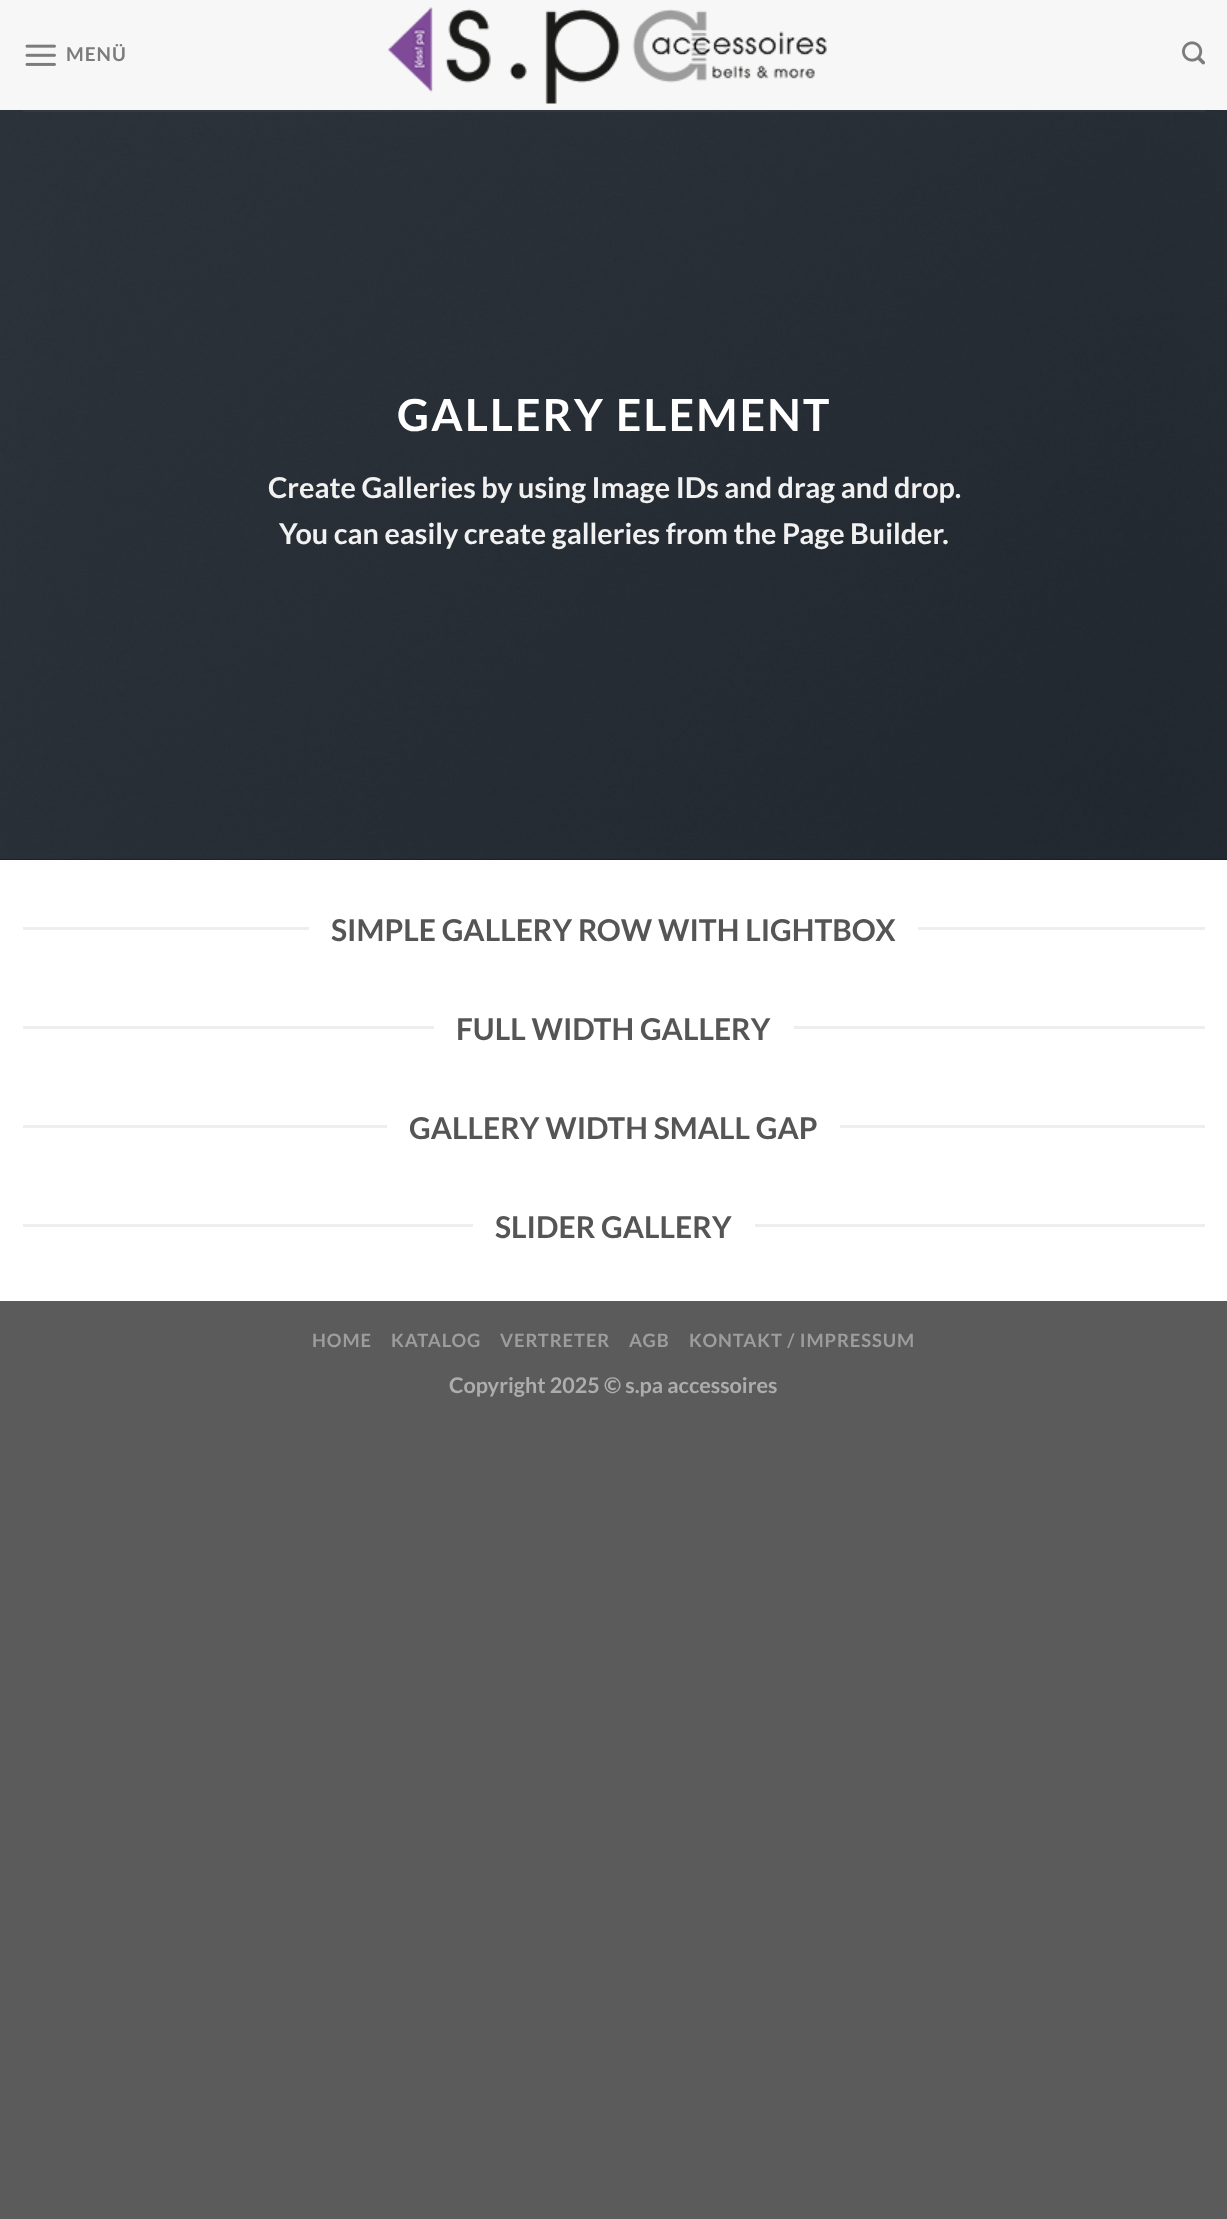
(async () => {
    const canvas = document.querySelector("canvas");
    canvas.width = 1227;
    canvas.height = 2219;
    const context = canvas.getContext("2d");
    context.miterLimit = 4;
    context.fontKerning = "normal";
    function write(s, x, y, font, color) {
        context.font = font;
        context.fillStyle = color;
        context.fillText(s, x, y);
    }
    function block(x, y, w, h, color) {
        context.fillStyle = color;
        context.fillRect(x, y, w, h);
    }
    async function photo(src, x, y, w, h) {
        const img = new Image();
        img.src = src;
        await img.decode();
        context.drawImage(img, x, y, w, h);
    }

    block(0, 0, 1227, 2219, "rgb(91, 91, 91)");
    block(0, 0, 1227, 1301, "rgb(255, 255, 255)");
    block(0, 859, 1227, 1, "rgb(37, 22, 44)");
    await photo("media/4.png", 0, 109, 1227, 751);
    block(0, 0, 1227, 110, "rgba(247, 247, 247, 0.94)");
    await photo("media/1.png", 25, 44, 31, 22);
    context.letterSpacing = "1px";
    write("MENÜ", 66, 61, "bold 19px Lato", "rgb(124, 124, 124)");
    await photo("media/2.png", 388, 7, 439, 97);
    await photo("media/3.png", 1182, 41, 23, 24);
    block(23, 110, 1182, 2, "rgba(119, 119, 119, 0.1)");
    context.letterSpacing = "2.25px";
    write("GALLERY ELEMENT", 397, 431, "bold 44.25px Lato", "rgb(255, 255, 255)");
    context.letterSpacing = "0px";
    write("Create Galleries by using Image IDs and drag and drop.", 268, 498, "bold 28.75px Lato", "rgb(241, 241, 241)");
    write("You can easily create galleries from the Page Builder.", 279, 544, "bold 28.75px Lato", "rgb(241, 241, 241)");
    block(23, 927, 286, 3, "rgb(238, 238, 238)");
    write("SIMPLE GALLERY ROW WITH LIGHTBOX", 331, 941, "bold 30px Lato", "rgb(85, 85, 85)");
    block(918, 927, 287, 3, "rgb(238, 238, 238)");
    block(23, 1026, 411, 3, "rgb(238, 238, 238)");
    write("FULL WIDTH GALLERY", 456, 1040, "bold 30px Lato", "rgb(85, 85, 85)");
    block(794, 1026, 411, 3, "rgb(238, 238, 238)");
    block(23, 1125, 364, 3, "rgb(238, 238, 238)");
    write("GALLERY WIDTH SMALL GAP", 409, 1139, "bold 30px Lato", "rgb(85, 85, 85)");
    block(840, 1125, 365, 3, "rgb(238, 238, 238)");
    block(23, 1224, 450, 3, "rgb(238, 238, 238)");
    write("SLIDER GALLERY", 495, 1238, "bold 30px Lato", "rgb(85, 85, 85)");
    block(755, 1224, 450, 3, "rgb(238, 238, 238)");
    context.letterSpacing = "0.9px";
    write("HOME", 312, 1347, "bold 18.4px Lato", "rgb(157, 157, 157)");
    write("KATALOG", 391, 1347, "bold 18.4px Lato", "rgb(157, 157, 157)");
    write("VERTRETER", 500, 1347, "bold 18.4px Lato", "rgb(157, 157, 157)");
    write("AGB", 629, 1347, "bold 18.4px Lato", "rgb(157, 157, 157)");
    write("KONTAKT / IMPRESSUM", 689, 1347, "bold 18.4px Lato", "rgb(157, 157, 157)");
    context.letterSpacing = "0px";
    write("Copyright 2025 © s.pa accessoires", 449, 1393, "bold 21.6px Lato", "rgb(173, 173, 173)");
})();
